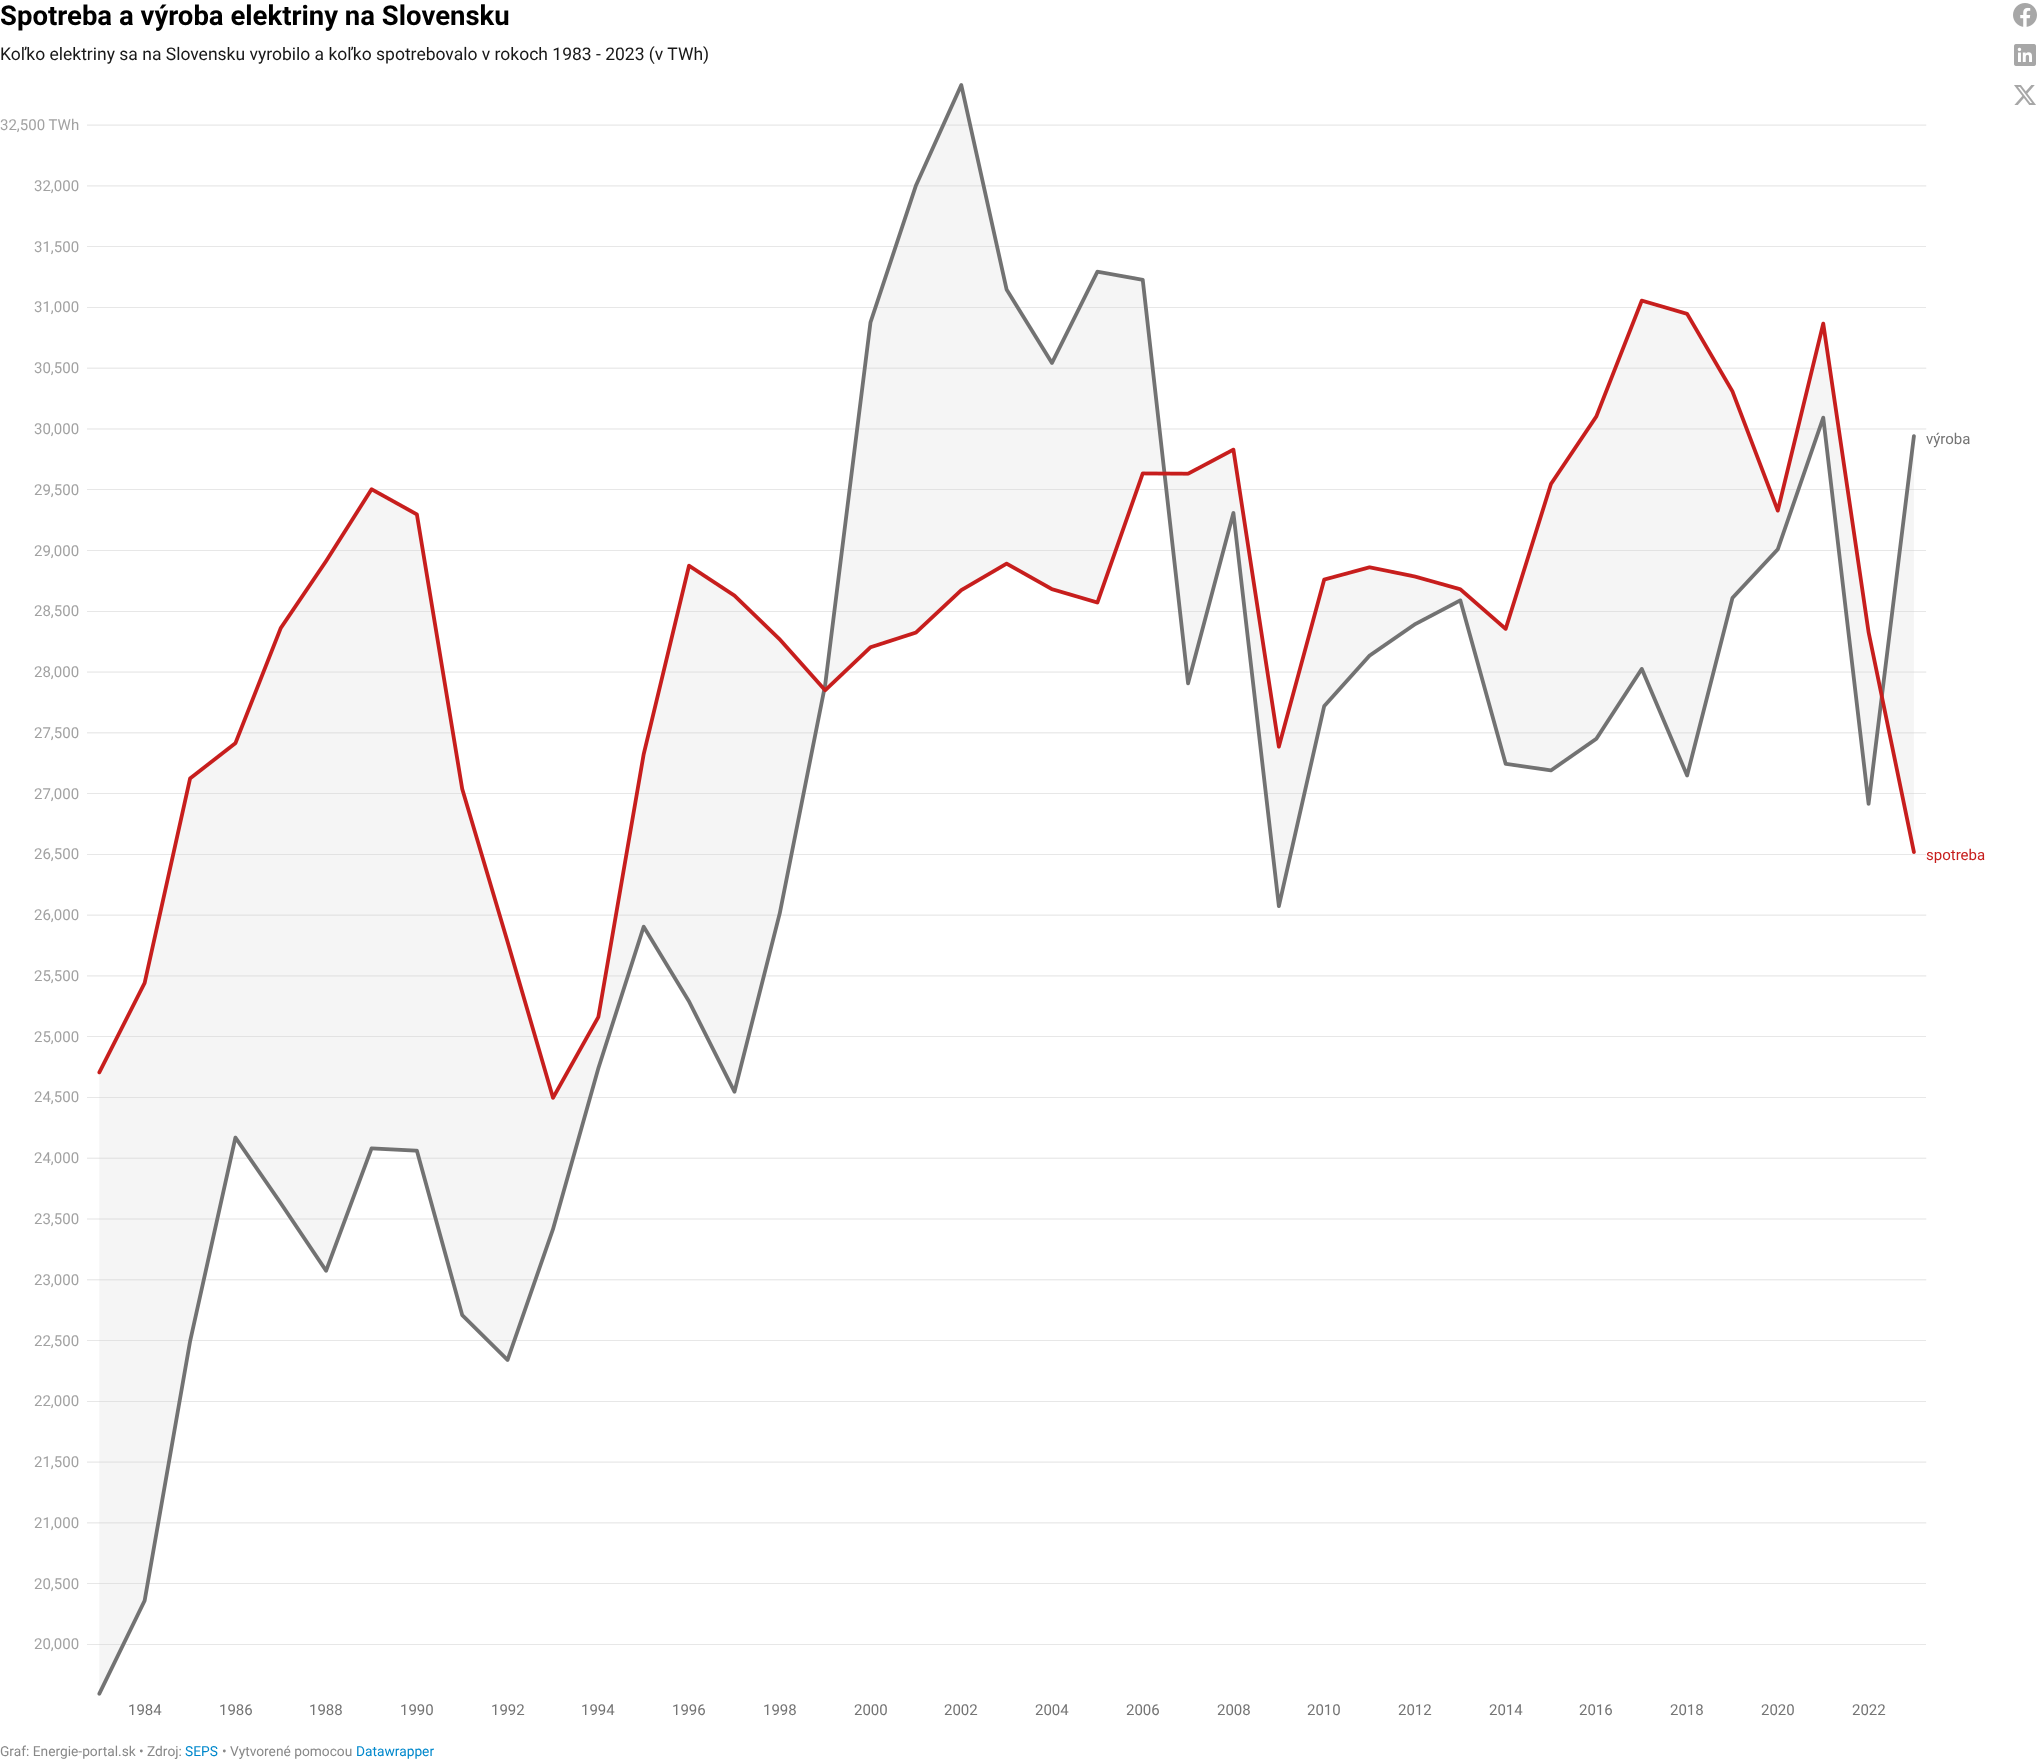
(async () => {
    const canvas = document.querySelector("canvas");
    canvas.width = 2039;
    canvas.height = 1759;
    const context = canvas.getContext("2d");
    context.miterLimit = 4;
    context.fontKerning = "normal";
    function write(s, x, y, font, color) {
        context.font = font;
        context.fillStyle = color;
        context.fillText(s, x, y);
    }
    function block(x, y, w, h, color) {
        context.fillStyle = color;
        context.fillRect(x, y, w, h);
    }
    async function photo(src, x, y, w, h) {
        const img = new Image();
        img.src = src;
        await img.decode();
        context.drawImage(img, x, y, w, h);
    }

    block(0, 0, 2039, 1759, "rgb(255, 255, 255)");
    write("Spotreba a výroba elektriny na Slovensku", 0, 25, "bold 27.5px Roboto", "rgb(0, 0, 0)");
    write("Koľko elektriny sa na Slovensku vyrobilo a koľko spotrebovalo v rokoch 1983 - 2023 (v TWh)", 0, 60, "17.5px Roboto", "rgb(24, 24, 24)");
    await photo("media/1.png", 87, 83, 1840, 1613);
    write("32,500 TWh", 0, 130, "15px Roboto", "rgb(162, 162, 162)");
    write("32,000", 34, 191, "15px Roboto", "rgb(162, 162, 162)");
    write("31,500", 34, 252, "15px Roboto", "rgb(162, 162, 162)");
    write("31,000", 34, 312, "15px Roboto", "rgb(162, 162, 162)");
    write("30,500", 34, 373, "15px Roboto", "rgb(162, 162, 162)");
    write("30,000", 34, 434, "15px Roboto", "rgb(162, 162, 162)");
    write("29,500", 34, 495, "15px Roboto", "rgb(162, 162, 162)");
    write("29,000", 34, 556, "15px Roboto", "rgb(162, 162, 162)");
    write("28,500", 34, 616, "15px Roboto", "rgb(162, 162, 162)");
    write("28,000", 34, 677, "15px Roboto", "rgb(162, 162, 162)");
    write("27,500", 34, 738, "15px Roboto", "rgb(162, 162, 162)");
    write("27,000", 34, 799, "15px Roboto", "rgb(162, 162, 162)");
    write("26,500", 34, 859, "15px Roboto", "rgb(162, 162, 162)");
    write("26,000", 34, 920, "15px Roboto", "rgb(162, 162, 162)");
    write("25,500", 34, 981, "15px Roboto", "rgb(162, 162, 162)");
    write("25,000", 34, 1042, "15px Roboto", "rgb(162, 162, 162)");
    write("24,500", 34, 1102, "15px Roboto", "rgb(162, 162, 162)");
    write("24,000", 34, 1163, "15px Roboto", "rgb(162, 162, 162)");
    write("23,500", 34, 1224, "15px Roboto", "rgb(162, 162, 162)");
    write("23,000", 34, 1285, "15px Roboto", "rgb(162, 162, 162)");
    write("22,500", 34, 1346, "15px Roboto", "rgb(162, 162, 162)");
    write("22,000", 34, 1406, "15px Roboto", "rgb(162, 162, 162)");
    write("21,500", 34, 1467, "15px Roboto", "rgb(162, 162, 162)");
    write("21,000", 34, 1528, "15px Roboto", "rgb(162, 162, 162)");
    write("20,500", 34, 1589, "15px Roboto", "rgb(162, 162, 162)");
    write("20,000", 34, 1649, "15px Roboto", "rgb(162, 162, 162)");
    write("1984", 128, 1715, "15px Roboto", "rgb(116, 116, 116)");
    write("1986", 219, 1715, "15px Roboto", "rgb(116, 116, 116)");
    write("1988", 309, 1715, "15px Roboto", "rgb(116, 116, 116)");
    write("1990", 400, 1715, "15px Roboto", "rgb(116, 116, 116)");
    write("1992", 491, 1715, "15px Roboto", "rgb(116, 116, 116)");
    write("1994", 581, 1715, "15px Roboto", "rgb(116, 116, 116)");
    write("1996", 672, 1715, "15px Roboto", "rgb(116, 116, 116)");
    write("1998", 763, 1715, "15px Roboto", "rgb(116, 116, 116)");
    write("2000", 854, 1715, "15px Roboto", "rgb(116, 116, 116)");
    write("2002", 944, 1715, "15px Roboto", "rgb(116, 116, 116)");
    write("2004", 1035, 1715, "15px Roboto", "rgb(116, 116, 116)");
    write("2006", 1126, 1715, "15px Roboto", "rgb(116, 116, 116)");
    write("2008", 1217, 1715, "15px Roboto", "rgb(116, 116, 116)");
    write("2010", 1307, 1715, "15px Roboto", "rgb(116, 116, 116)");
    write("2012", 1398, 1715, "15px Roboto", "rgb(116, 116, 116)");
    write("2014", 1489, 1715, "15px Roboto", "rgb(116, 116, 116)");
    write("2016", 1579, 1715, "15px Roboto", "rgb(116, 116, 116)");
    write("2018", 1670, 1715, "15px Roboto", "rgb(116, 116, 116)");
    write("2020", 1761, 1715, "15px Roboto", "rgb(116, 116, 116)");
    write("2022", 1852, 1715, "15px Roboto", "rgb(116, 116, 116)");
    write("výroba", 1926, 444, "15px Roboto", "rgb(116, 116, 116)");
    write("spotreba", 1926, 860, "15px Roboto", "rgb(199, 30, 29)");
    await photo("media/2.png", 2013, 3, 24, 24);
    await photo("media/3.png", 2014, 44, 22, 22);
    await photo("media/4.png", 2014, 85, 22, 20);
    write("Graf: Energie-portal.sk •", 0, 1756, "13.75px Roboto", "rgb(136, 136, 136)");
    write("Zdroj:", 147, 1756, "13.75px Roboto", "rgb(136, 136, 136)");
    write("SEPS", 185, 1756, "13.75px Roboto", "rgb(0, 136, 204)");
    write("•", 222, 1756, "13.75px Roboto", "rgb(136, 136, 136)");
    write("Vytvorené pomocou", 230, 1756, "13.75px Roboto", "rgb(136, 136, 136)");
    write("Datawrapper", 356, 1756, "13.75px Roboto", "rgb(0, 136, 204)");
})();
